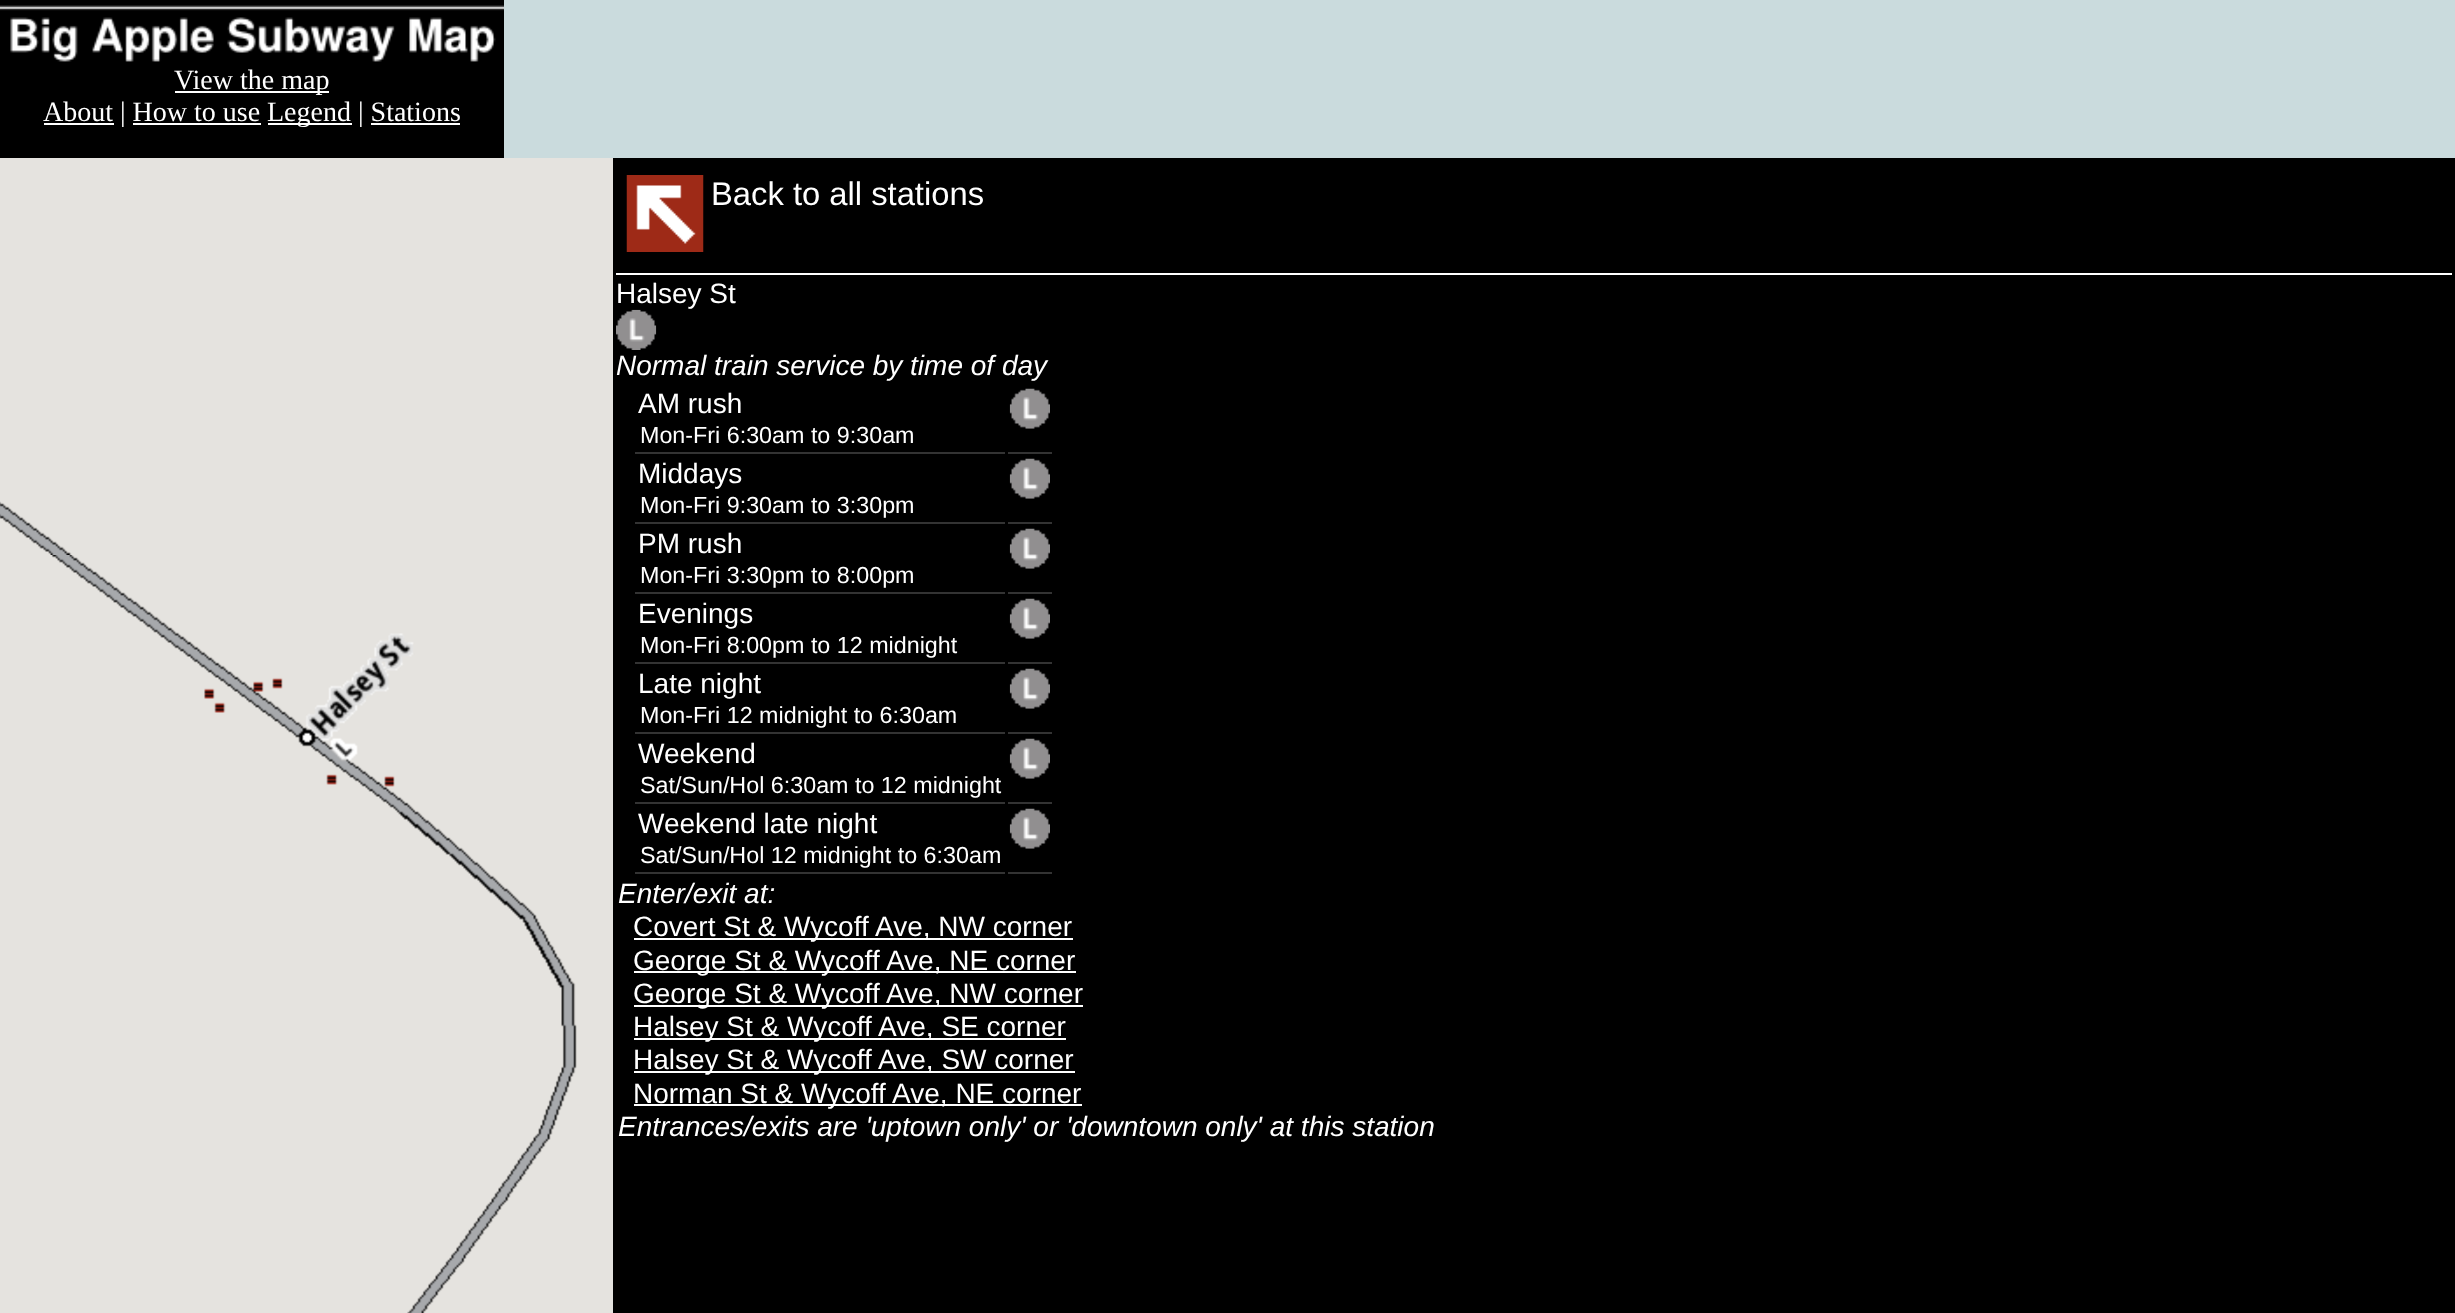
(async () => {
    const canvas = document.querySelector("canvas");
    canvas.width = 2455;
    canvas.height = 1313;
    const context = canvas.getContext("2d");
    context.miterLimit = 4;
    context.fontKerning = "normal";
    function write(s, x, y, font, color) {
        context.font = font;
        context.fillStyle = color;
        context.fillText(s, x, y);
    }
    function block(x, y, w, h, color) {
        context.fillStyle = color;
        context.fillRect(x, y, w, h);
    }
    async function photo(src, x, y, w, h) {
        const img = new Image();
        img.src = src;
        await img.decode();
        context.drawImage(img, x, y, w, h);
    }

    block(0, 0, 2455, 1313, "rgb(0, 0, 0)");
    await photo("media/1.png", 0, 5, 504, 57);
    block(175, 91, 154, 2, "rgb(255, 255, 255)");
    write("View the map", 174, 89, "28px Liberation Serif", "rgb(255, 255, 255)");
    block(44, 123, 70, 2, "rgb(255, 255, 255)");
    write("About | How to use", 43, 121, "28px Liberation Serif", "rgb(255, 255, 255)");
    block(268, 123, 84, 2, "rgb(255, 255, 255)");
    write("Legend | Stations", 267, 121, "28px Liberation Serif", "rgb(255, 255, 255)");
    block(133, 123, 128, 2, "rgb(255, 255, 255)");
    block(371, 123, 89, 2, "rgb(255, 255, 255)");
    block(504, 0, 1951, 158, "rgb(202, 219, 221)");
    block(0, 158, 613, 1155, "rgb(229, 227, 223)");
    await photo("media/2.png", 0, 501, 72, 54);
    await photo("media/3.png", 51, 555, 178, 158);
    await photo("media/4.png", 229, 633, 347, 370);
    await photo("media/5.png", 407, 1003, 170, 310);
    await photo("media/6.png", 626, 175, 78, 77);
    write("Back to all stations", 711, 205, "32.75px Liberation Sans", "rgb(255, 255, 255)");
    block(616, 273, 1836, 2, "rgb(255, 255, 255)");
    write("Halsey St", 616, 303, "28px Liberation Sans", "rgb(255, 255, 255)");
    await photo("media/7.png", 616, 309, 41, 41);
    write("Normal train service by time of day", 616, 375, "italic 28px Liberation Sans", "rgb(255, 255, 255)");
    block(635, 452, 370, 2, "rgb(51, 51, 51)");
    write("AM rush", 638, 413, "28px Liberation Sans", "rgb(255, 255, 255)");
    write("Mon-Fri 6:30am to 9:30am", 640, 443, "23.3px Liberation Sans", "rgb(255, 255, 255)");
    block(1008, 452, 44, 2, "rgb(51, 51, 51)");
    await photo("media/8.png", 1009, 388, 41, 41);
    block(635, 522, 370, 2, "rgb(51, 51, 51)");
    write("Middays", 638, 483, "28px Liberation Sans", "rgb(255, 255, 255)");
    write("Mon-Fri 9:30am to 3:30pm", 640, 513, "23.3px Liberation Sans", "rgb(255, 255, 255)");
    block(1008, 522, 44, 2, "rgb(51, 51, 51)");
    await photo("media/8.png", 1009, 458, 41, 41);
    block(635, 592, 370, 2, "rgb(51, 51, 51)");
    write("PM rush", 638, 553, "28px Liberation Sans", "rgb(255, 255, 255)");
    write("Mon-Fri 3:30pm to 8:00pm", 640, 583, "23.3px Liberation Sans", "rgb(255, 255, 255)");
    block(1008, 592, 44, 2, "rgb(51, 51, 51)");
    await photo("media/8.png", 1009, 528, 41, 41);
    block(635, 662, 370, 2, "rgb(51, 51, 51)");
    write("Evenings", 638, 623, "28px Liberation Sans", "rgb(255, 255, 255)");
    write("Mon-Fri 8:00pm to 12 midnight", 640, 653, "23.3px Liberation Sans", "rgb(255, 255, 255)");
    block(1008, 662, 44, 2, "rgb(51, 51, 51)");
    await photo("media/8.png", 1009, 598, 41, 41);
    block(635, 732, 370, 2, "rgb(51, 51, 51)");
    write("Late night", 638, 693, "28px Liberation Sans", "rgb(255, 255, 255)");
    write("Mon-Fri 12 midnight to 6:30am", 640, 723, "23.3px Liberation Sans", "rgb(255, 255, 255)");
    block(1008, 732, 44, 2, "rgb(51, 51, 51)");
    await photo("media/8.png", 1009, 668, 41, 41);
    block(635, 802, 370, 2, "rgb(51, 51, 51)");
    write("Weekend", 638, 763, "28px Liberation Sans", "rgb(255, 255, 255)");
    write("Sat/Sun/Hol 6:30am to 12 midnight", 640, 793, "23.3px Liberation Sans", "rgb(255, 255, 255)");
    block(1008, 802, 44, 2, "rgb(51, 51, 51)");
    await photo("media/8.png", 1009, 738, 41, 41);
    block(635, 872, 370, 2, "rgb(51, 51, 51)");
    write("Weekend late night", 638, 833, "28px Liberation Sans", "rgb(255, 255, 255)");
    write("Sat/Sun/Hol 12 midnight to 6:30am", 640, 863, "23.3px Liberation Sans", "rgb(255, 255, 255)");
    block(1008, 872, 44, 2, "rgb(51, 51, 51)");
    await photo("media/8.png", 1009, 808, 41, 41);
    write("Enter/exit at:", 618, 903, "italic 28px Liberation Sans", "rgb(255, 255, 255)");
    block(634, 938, 439, 2, "rgb(255, 255, 255)");
    write("Covert St & Wycoff Ave, NW corner", 633, 936, "28px Liberation Sans", "rgb(255, 255, 255)");
    block(634, 971, 442, 2, "rgb(255, 255, 255)");
    write("George St & Wycoff Ave, NE corner", 633, 970, "28px Liberation Sans", "rgb(255, 255, 255)");
    block(634, 1005, 449, 2, "rgb(255, 255, 255)");
    write("George St & Wycoff Ave, NW corner", 633, 1003, "28px Liberation Sans", "rgb(255, 255, 255)");
    block(634, 1038, 432, 2, "rgb(255, 255, 255)");
    write("Halsey St & Wycoff Ave, SE corner", 633, 1036, "28px Liberation Sans", "rgb(255, 255, 255)");
    block(634, 1071, 441, 2, "rgb(255, 255, 255)");
    write("Halsey St & Wycoff Ave, SW corner", 633, 1069, "28px Liberation Sans", "rgb(255, 255, 255)");
    block(634, 1104, 448, 2, "rgb(255, 255, 255)");
    write("Norman St & Wycoff Ave, NE corner", 633, 1103, "28px Liberation Sans", "rgb(255, 255, 255)");
    write("Entrances/exits are 'uptown only' or 'downtown only' at this station", 618, 1136, "italic 28px Liberation Sans", "rgb(255, 255, 255)");
})();
